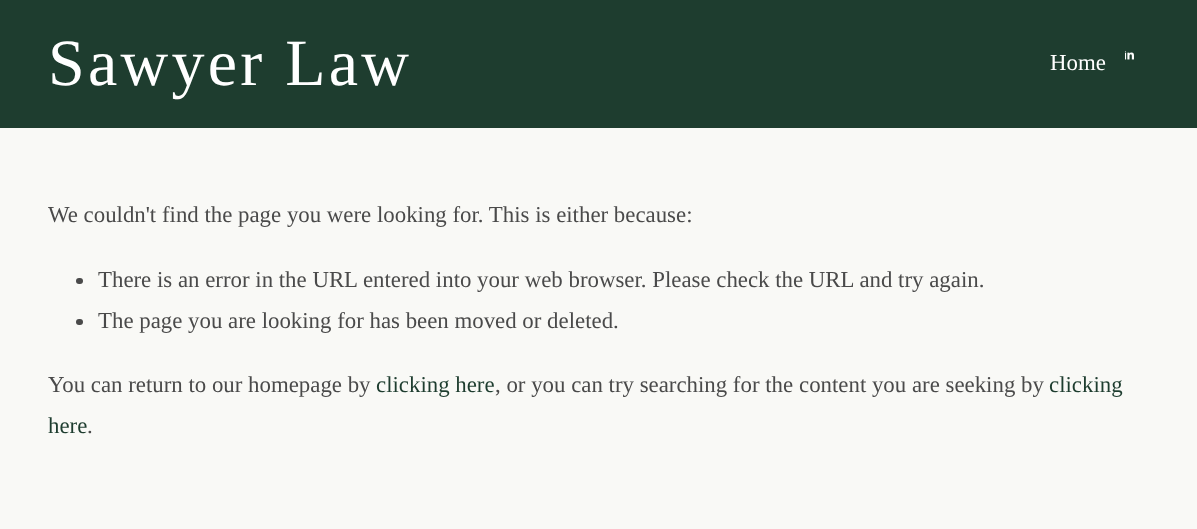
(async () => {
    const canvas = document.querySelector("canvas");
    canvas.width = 1197;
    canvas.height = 529;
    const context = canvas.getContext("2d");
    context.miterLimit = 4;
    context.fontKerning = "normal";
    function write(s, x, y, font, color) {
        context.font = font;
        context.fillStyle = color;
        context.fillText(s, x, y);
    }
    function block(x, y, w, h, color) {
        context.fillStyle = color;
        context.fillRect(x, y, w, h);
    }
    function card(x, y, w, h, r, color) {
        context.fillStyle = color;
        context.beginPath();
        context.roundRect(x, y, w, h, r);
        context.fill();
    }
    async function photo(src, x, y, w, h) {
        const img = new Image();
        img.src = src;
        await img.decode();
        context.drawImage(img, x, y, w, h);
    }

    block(0, 0, 1197, 529, "rgb(249, 249, 246)");
    block(0, 0, 1197, 128, "rgb(30, 61, 47)");
    context.letterSpacing = "3.25px";
    write("Sawyer Law", 48, 85, "66px Liberation Serif", "rgb(255, 255, 255)");
    context.letterSpacing = "0px";
    write("Home", 1050, 70, "22.85px Liberation Serif", "rgb(255, 255, 255)");
    await photo("media/1.png", 1125, 51, 9, 9);
    write("We couldn't find the page you were looking for. This is either because:", 48, 222, "22.85px Liberation Serif", "rgb(74, 74, 74)");
    card(76, 278, 7, 6, 3, "rgb(74, 74, 74)");
    write("There is an error in the URL entered into your web browser. Please check the URL and try again.", 98, 287, "22.85px Liberation Serif", "rgb(74, 74, 74)");
    card(76, 319, 7, 6, 3, "rgb(74, 74, 74)");
    write("The page you are looking for has been moved or deleted.", 98, 328, "22.85px Liberation Serif", "rgb(74, 74, 74)");
    write("You can return to our homepage by", 48, 392, "22.85px Liberation Serif", "rgb(74, 74, 74)");
    write("clicking here", 376, 392, "22.85px Liberation Serif", "rgb(30, 61, 47)");
    write(", or you can try searching for the", 495, 392, "22.85px Liberation Serif", "rgb(74, 74, 74)");
    write("content you are seeking by", 799, 392, "22.85px Liberation Serif", "rgb(74, 74, 74)");
    write("clicking", 1049, 392, "22.85px Liberation Serif", "rgb(30, 61, 47)");
    write("here", 48, 433, "22.85px Liberation Serif", "rgb(30, 61, 47)");
    write(".", 87, 433, "22.85px Liberation Serif", "rgb(74, 74, 74)");
})();
